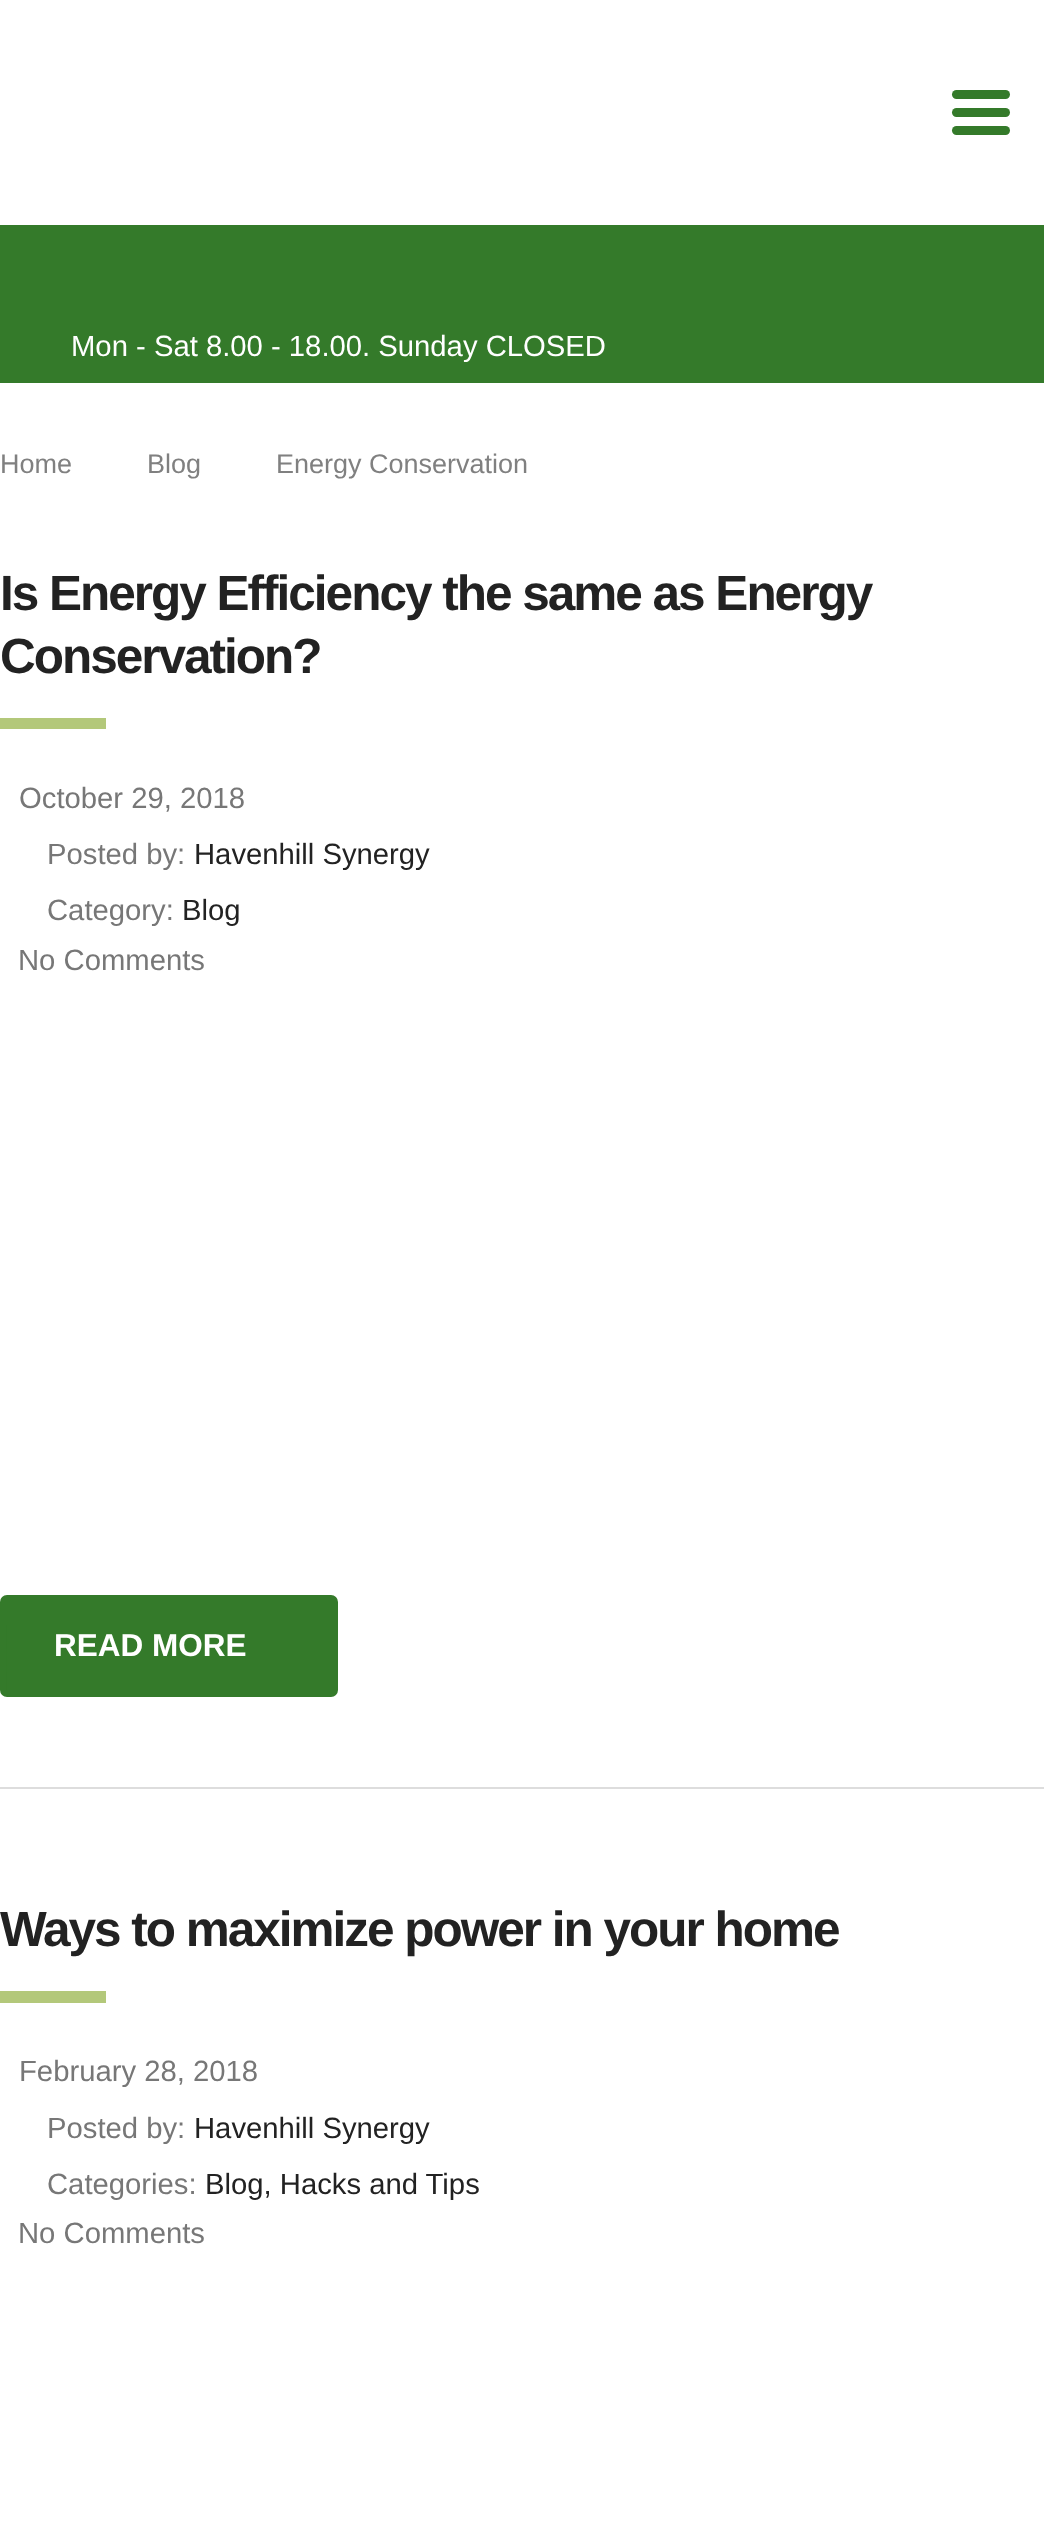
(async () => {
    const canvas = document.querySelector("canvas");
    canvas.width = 1044;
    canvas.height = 2530;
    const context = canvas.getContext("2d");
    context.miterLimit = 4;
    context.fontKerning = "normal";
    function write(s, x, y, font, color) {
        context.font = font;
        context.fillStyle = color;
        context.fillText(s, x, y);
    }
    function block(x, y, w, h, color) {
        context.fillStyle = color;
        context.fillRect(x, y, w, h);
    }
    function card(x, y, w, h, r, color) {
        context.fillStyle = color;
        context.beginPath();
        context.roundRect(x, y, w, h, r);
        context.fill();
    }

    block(0, 0, 1044, 2530, "rgb(255, 255, 255)");
    card(952, 108, 58, 9, 4.5, "rgb(52, 122, 42)");
    card(952, 90, 58, 9, 4.5, "rgb(52, 122, 42)");
    card(952, 126, 58, 9, 4.5, "rgb(52, 122, 42)");
    block(0, 225, 1044, 158, "rgb(52, 122, 42)");
    write("Mon - Sat 8.00 - 18.00. Sunday CLOSED", 71, 356, "29.25px Liberation Sans", "rgb(255, 255, 255)");
    write("Home", 0, 473, "27px Liberation Sans", "rgb(128, 128, 128)");
    write("Blog", 147, 473, "27px Liberation Sans", "rgb(128, 128, 128)");
    write("Energy Conservation", 276, 473, "27px Liberation Sans", "rgb(128, 128, 128)");
    block(0, 1787, 1044, 2, "rgb(221, 221, 221)");
    context.letterSpacing = "-2px";
    write("Is Energy Efficiency the same as Energy", 0, 610, "bold 49.5px Liberation Sans", "rgb(34, 34, 34)");
    write("Conservation?", 0, 673, "bold 49.5px Liberation Sans", "rgb(34, 34, 34)");
    block(0, 718, 106, 11, "rgb(179, 200, 122)");
    context.letterSpacing = "0px";
    write("October 29, 2018", 19, 808, "29.25px Liberation Sans", "rgb(119, 119, 119)");
    write("Posted by:", 47, 864, "29.25px Liberation Sans", "rgb(119, 119, 119)");
    write("Havenhill Synergy", 194, 864, "29.25px Liberation Sans", "rgb(34, 34, 34)");
    write("Category:", 47, 920, "29.25px Liberation Sans", "rgb(119, 119, 119)");
    write("Blog", 182, 920, "29.25px Liberation Sans", "rgb(34, 34, 34)");
    write("No Comments", 18, 970, "29.25px Liberation Sans", "rgb(119, 119, 119)");
    context.fillStyle = "rgb(52, 122, 42)";
    context.beginPath();
    context.roundRect(3.5, 1598.5, 331, 95, 3.5);
    context.fill();
    context.strokeStyle = "rgb(52, 122, 42)";
    context.lineWidth = 7;
    context.stroke();
    write("READ MORE", 54, 1656, "bold 31.5px Liberation Sans", "rgb(255, 255, 255)");
    context.letterSpacing = "-2px";
    write("Ways to maximize power in your home", 0, 1946, "bold 49.5px Liberation Sans", "rgb(34, 34, 34)");
    block(0, 1991, 106, 12, "rgb(179, 200, 122)");
    context.letterSpacing = "0px";
    write("February 28, 2018", 19, 2081, "29.25px Liberation Sans", "rgb(119, 119, 119)");
    write("Posted by:", 47, 2138, "29.25px Liberation Sans", "rgb(119, 119, 119)");
    write("Havenhill Synergy", 194, 2138, "29.25px Liberation Sans", "rgb(34, 34, 34)");
    write("Categories:", 47, 2194, "29.25px Liberation Sans", "rgb(119, 119, 119)");
    write("Blog, Hacks and Tips", 205, 2194, "29.25px Liberation Sans", "rgb(34, 34, 34)");
    write("No Comments", 18, 2243, "29.25px Liberation Sans", "rgb(119, 119, 119)");
})();
